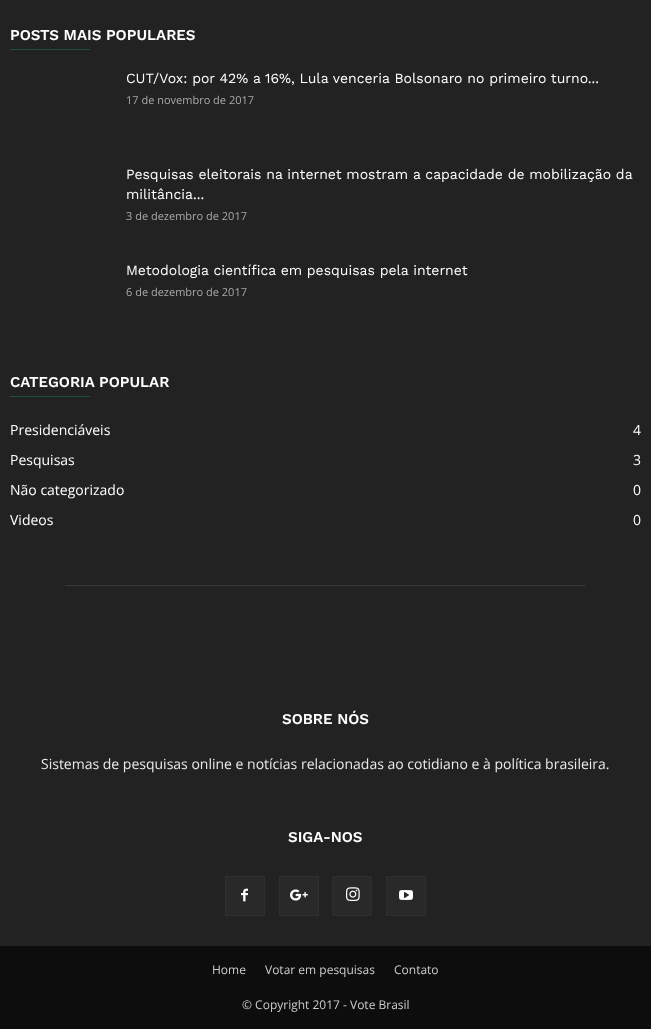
(async () => {
    const canvas = document.querySelector("canvas");
    canvas.width = 651;
    canvas.height = 1029;
    const context = canvas.getContext("2d");
    context.miterLimit = 4;
    context.fontKerning = "normal";
    function write(s, x, y, font, color) {
        context.font = font;
        context.fillStyle = color;
        context.fillText(s, x, y);
    }
    function block(x, y, w, h, color) {
        context.fillStyle = color;
        context.fillRect(x, y, w, h);
    }
    async function photo(src, x, y, w, h) {
        const img = new Image();
        img.src = src;
        await img.decode();
        context.drawImage(img, x, y, w, h);
    }

    block(0, 0, 651, 1029, "rgb(13, 13, 13)");
    block(0, 0, 651, 946, "rgb(34, 34, 34)");
    write("POSTS MAIS POPULARES", 10, 40, "600 15px Work Sans", "rgb(255, 255, 255)");
    block(10, 49, 80, 1, "rgb(32, 78, 68)");
    write("CUT/Vox: por 42% a 16%, Lula venceria Bolsonaro no primeiro turno...", 126, 83, "14px Work Sans", "rgb(255, 255, 255)");
    write("17 de novembro de 2017", 126, 104, "11px Open Sans", "rgb(170, 170, 170)");
    write("Pesquisas eleitorais na internet mostram a capacidade de mobilização da", 126, 179, "14px Work Sans", "rgb(255, 255, 255)");
    write("militância...", 126, 199, "14px Work Sans", "rgb(255, 255, 255)");
    write("3 de dezembro de 2017", 126, 220, "11px Open Sans", "rgb(170, 170, 170)");
    write("Metodologia científica em pesquisas pela internet", 126, 275, "14px Work Sans", "rgb(255, 255, 255)");
    write("6 de dezembro de 2017", 126, 296, "11px Open Sans", "rgb(170, 170, 170)");
    write("CATEGORIA POPULAR", 10, 387, "600 15px Work Sans", "rgb(255, 255, 255)");
    block(10, 396, 80, 1, "rgb(32, 78, 68)");
    write("Presidenciáveis", 10, 435, "14px Open Sans", "rgb(255, 255, 255)");
    write("4", 633, 435, "14px Open Sans", "rgb(255, 255, 255)");
    write("Pesquisas", 10, 465, "14px Open Sans", "rgb(255, 255, 255)");
    write("3", 633, 465, "14px Open Sans", "rgb(255, 255, 255)");
    write("Não categorizado", 10, 495, "14px Open Sans", "rgb(255, 255, 255)");
    write("0", 633, 495, "14px Open Sans", "rgb(255, 255, 255)");
    write("Videos", 10, 525, "14px Open Sans", "rgb(255, 255, 255)");
    write("0", 633, 525, "14px Open Sans", "rgb(255, 255, 255)");
    block(65, 585, 521, 1, "rgb(56, 56, 56)");
    write("SOBRE NÓS", 282, 724, "600 15px Work Sans", "rgb(255, 255, 255)");
    write("Sistemas de pesquisas online e notícias relacionadas ao cotidiano e à política brasileira.", 41, 769, "14px Open Sans", "rgb(234, 234, 234)");
    write("SIGA-NOS", 288, 842, "600 15px Work Sans", "rgb(255, 255, 255)");
    block(226, 877, 38, 38, "rgb(41, 41, 41)");
    await photo("media/1.png", 241, 888, 7, 14);
    context.strokeStyle = "rgb(47, 47, 47)";
    context.strokeRect(225.5, 876.5, 39, 39);
    block(280, 877, 38, 38, "rgb(41, 41, 41)");
    await photo("media/2.png", 290, 889, 18, 12);
    context.strokeRect(279.5, 876.5, 39, 39);
    block(333, 877, 38, 38, "rgb(41, 41, 41)");
    await photo("media/3.png", 346, 887, 14, 14);
    context.strokeRect(332.5, 876.5, 39, 39);
    block(387, 877, 38, 38, "rgb(41, 41, 41)");
    await photo("media/4.png", 399, 890, 14, 10);
    context.strokeRect(386.5, 876.5, 39, 39);
    write("Home", 212, 974, "12px Open Sans", "rgb(204, 204, 204)");
    write("Votar em pesquisas", 265, 974, "12px Open Sans", "rgb(204, 204, 204)");
    write("Contato", 394, 974, "12px Open Sans", "rgb(204, 204, 204)");
    write("© Copyright 2017 - Vote Brasil", 242, 1009, "12px Open Sans", "rgb(204, 204, 204)");
})();
